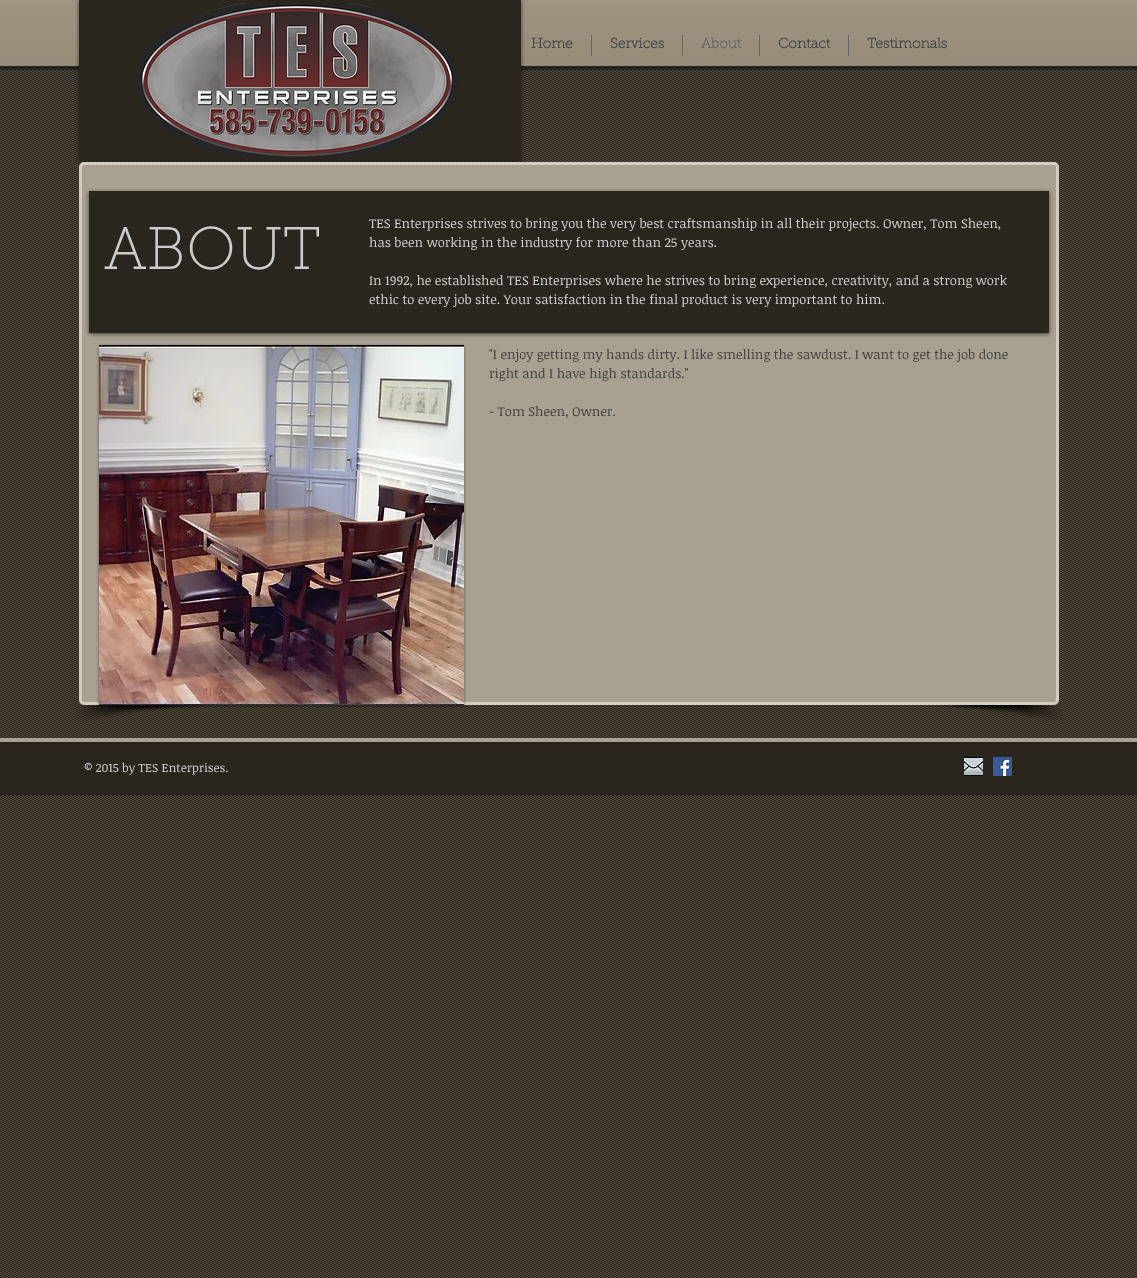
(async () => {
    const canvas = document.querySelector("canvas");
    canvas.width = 1137;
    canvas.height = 1278;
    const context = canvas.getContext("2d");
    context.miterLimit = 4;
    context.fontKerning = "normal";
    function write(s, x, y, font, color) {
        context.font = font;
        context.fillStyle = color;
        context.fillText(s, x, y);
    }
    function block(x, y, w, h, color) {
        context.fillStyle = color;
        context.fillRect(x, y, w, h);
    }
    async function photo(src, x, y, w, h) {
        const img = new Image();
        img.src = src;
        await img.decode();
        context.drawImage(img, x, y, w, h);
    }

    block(0, 0, 1137, 1278, "rgb(83, 75, 59)");
    block(0, 0, 1137, 66, "rgb(125, 113, 89)");
    block(0, 66, 1137, 4, "rgb(34, 34, 34)");
    await photo("media/2.png", 0, 0, 1137, 66);
    await photo("media/8.png", 0, 70, 1137, 1208);
    context.fillStyle = "rgba(0, 0, 0, 0.6)";
    context.filter = "blur(2px)";
    context.beginPath();
    context.rect(79, 1, 442, 161);
    context.fill();
    context.filter = "none";
    block(79, 0, 442, 161, "rgb(42, 38, 30)");
    await photo("media/1.png", 135, 3, 324, 155);
    write("Home", 531, 48, "bold 14px 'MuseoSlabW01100'", "rgb(68, 68, 68)");
    block(591, 35, 1, 21, "rgb(102, 102, 102)");
    write("Services", 610, 48, "bold 14px 'MuseoSlabW01100'", "rgb(68, 68, 68)");
    block(682, 35, 1, 21, "rgb(102, 102, 102)");
    write("About", 701, 48, "bold 14px 'MuseoSlabW01100'", "rgb(102, 102, 102)");
    block(759, 35, 1, 21, "rgb(102, 102, 102)");
    write("Contact", 778, 48, "bold 14px 'MuseoSlabW01100'", "rgb(68, 68, 68)");
    block(848, 35, 1, 21, "rgb(102, 102, 102)");
    write("Testimonals", 867, 48, "bold 14px 'MuseoSlabW01100'", "rgb(68, 68, 68)");
    context.fillStyle = "rgb(168, 160, 144)";
    context.beginPath();
    context.roundRect(80.5, 163.5, 977, 540, 3.5);
    context.fill();
    context.strokeStyle = "rgb(212, 205, 191)";
    context.lineWidth = 3;
    context.stroke();
    await photo("media/3.png", 75, 705, 136, 16);
    await photo("media/4.png", 927, 705, 136, 16);
    context.fillStyle = "rgba(0, 0, 0, 0.6)";
    context.filter = "blur(2px)";
    context.beginPath();
    context.rect(89, 192, 960, 142);
    context.fill();
    context.filter = "none";
    block(89, 191, 960, 142, "rgb(42, 38, 30)");
    write("ABOUT", 104, 269, "100 60px 'MuseoSlabW01100'", "rgb(204, 204, 204)");
    write("TES Enterprises strives to bring you the very best craftsmanship in all their projects. Owner, Tom Sheen,", 369, 228, "13px Noticia Text", "rgb(204, 204, 204)");
    write("has been working in the industry for more than 25 years.", 369, 247, "13px Noticia Text", "rgb(204, 204, 204)");
    write("In 1992, he established TES Enterprises where he strives to bring experience, creativity, and a strong work", 369, 285, "13px Noticia Text", "rgb(204, 204, 204)");
    write("ethic to every job site. Your satisfaction in the final product is very important to him.", 369, 304, "13px Noticia Text", "rgb(204, 204, 204)");
    context.fillStyle = "rgba(0, 0, 0, 0.5)";
    context.filter = "blur(1.5px)";
    context.beginPath();
    context.rect(99, 346, 365, 360);
    context.fill();
    context.filter = "none";
    await photo("media/5.png", 99, 345, 365, 360);
    write("\"I enjoy getting my hands dirty. I like smelling the sawdust. I want to get the job done", 489, 359, "13px Noticia Text", "rgb(68, 68, 68)");
    write("right and I have high standards.\"", 489, 378, "13px Noticia Text", "rgb(68, 68, 68)");
    write("- Tom Sheen, Owner.", 489, 416, "13px Noticia Text", "rgb(68, 68, 68)");
    block(0, 742, 1137, 53, "rgb(42, 38, 30)");
    block(0, 738, 1137, 4, "rgb(168, 160, 144)");
    write("© 2015 by TES Enterprises.", 84, 772, "12px Noticia Text", "rgb(204, 204, 204)");
    await photo("media/6.png", 964, 757, 19, 19);
    await photo("media/7.png", 993, 757, 19, 19);
})();
